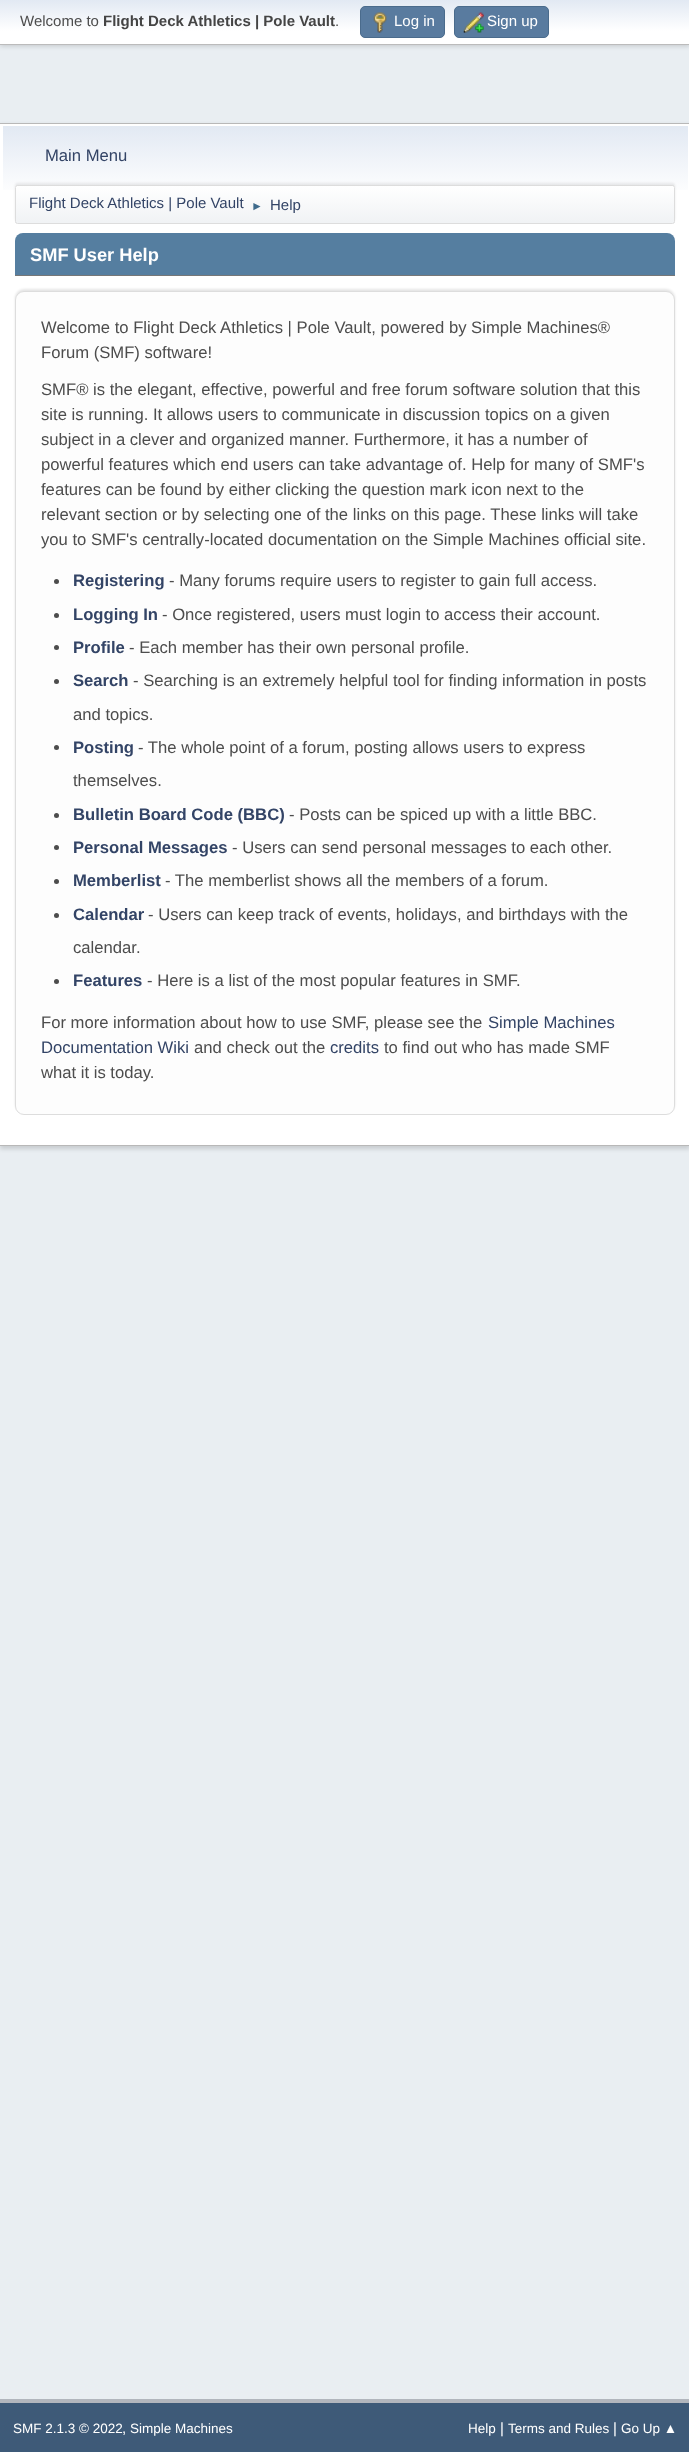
(async () => {
    const canvas = document.querySelector("canvas");
    canvas.width = 689;
    canvas.height = 2452;
    const context = canvas.getContext("2d");
    context.miterLimit = 4;
    context.fontKerning = "normal";
    function write(s, x, y, font, color) {
        context.font = font;
        context.fillStyle = color;
        context.fillText(s, x, y);
    }
    function block(x, y, w, h, color) {
        context.fillStyle = color;
        context.fillRect(x, y, w, h);
    }
    async function photo(src, x, y, w, h) {
        const img = new Image();
        img.src = src;
        await img.decode();
        context.drawImage(img, x, y, w, h);
    }
    let gradient;

    block(0, 0, 689, 2452, "rgb(233, 238, 242)");
    context.fillStyle = "rgba(0, 0, 0, 0.16)";
    context.filter = "blur(2.5px)";
    context.beginPath();
    context.rect(0, 1, 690, 45);
    context.fill();
    context.filter = "none";
    gradient = context.createLinearGradient(345, 0, 345, 44);
    gradient.addColorStop(0, "rgb(226, 233, 243)");
    gradient.addColorStop(0.7, "rgb(255, 255, 255)");
    context.fillStyle = gradient;
    context.fillRect(0, 0, 689, 44);
    block(0, 44, 689, 1, "rgb(187, 187, 187)");
    write("Welcome to", 20, 26, "15px Liberation Sans", "rgb(77, 77, 77)");
    write("Flight Deck Athletics | Pole Vault", 103, 26, "bold 15px Liberation Sans", "rgb(68, 68, 68)");
    write(".", 335, 26, "15px Liberation Sans", "rgb(77, 77, 77)");
    context.fillStyle = "rgb(89, 123, 159)";
    context.beginPath();
    context.roundRect(360.5, 6.5, 84, 31, 4.5);
    context.fill();
    context.strokeStyle = "rgb(74, 107, 140)";
    context.stroke();
    await photo("media/1.png", 373, 12, 14, 21);
    write("Log in", 394, 26, "15px Liberation Sans", "rgb(255, 255, 255)");
    context.fillStyle = "rgb(89, 123, 159)";
    context.beginPath();
    context.roundRect(454.5, 6.5, 94, 31, 4.5);
    context.fill();
    context.stroke();
    await photo("media/2.png", 463, 12, 21, 21);
    write("Sign up", 487, 26, "15px Liberation Sans", "rgb(255, 255, 255)");
    context.fillStyle = "rgba(0, 0, 0, 0.14)";
    context.filter = "blur(2px)";
    context.beginPath();
    context.rect(0, 125, 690, 1024);
    context.fill();
    context.filter = "none";
    block(0, 124, 689, 1021, "rgb(255, 255, 255)");
    block(0, 123, 689, 1, "rgb(184, 184, 184)");
    block(0, 1145, 689, 1, "rgb(184, 184, 184)");
    gradient = context.createLinearGradient(345, 126, 345, 226);
    gradient.addColorStop(0, "rgb(226, 233, 243)");
    gradient.addColorStop(0.7, "rgb(255, 255, 255)");
    context.fillStyle = gradient;
    context.fillRect(3, 126, 685, 64);
    write("Main Menu", 45, 161, "16.65px Liberation Sans", "rgb(51, 68, 102)");
    context.fillStyle = "rgba(0, 0, 0, 0.08)";
    context.filter = "blur(1px)";
    context.beginPath();
    context.roundRect(15, 183, 660, 38, 2.5);
    context.fill();
    context.filter = "none";
    context.save();
    context.beginPath();
    context.roundRect(15, 185, 660, 39, 2.5);
    context.clip();
    gradient = context.createLinearGradient(345, 186, 345, 223);
    gradient.addColorStop(0, "rgb(255, 255, 255)");
    gradient.addColorStop(0.95, "rgb(241, 243, 245)");
    context.fillStyle = gradient;
    context.fillRect(15, 186, 660, 37);
    context.restore();
    context.beginPath();
    context.roundRect(15.5, 185.5, 659, 38, 2);
    context.strokeStyle = "rgb(221, 221, 221)";
    context.stroke();
    write("Flight Deck Athletics | Pole Vault", 29, 208, "15px Liberation Sans", "rgb(51, 68, 102)");
    write("►", 251, 210, "12px Liberation Sans", "rgb(63, 107, 140)");
    write("Help", 270, 210, "15px Liberation Sans", "rgb(51, 68, 102)");
    context.fillStyle = "rgb(85, 126, 160)";
    context.beginPath();
    context.roundRect(15, 233, 660, 43, [8, 8, 0, 0]);
    context.fill();
    block(15, 275, 660, 1, "rgb(119, 119, 119)");
    write("SMF User Help", 30, 261, "bold 18.25px Liberation Sans", "rgb(255, 255, 255)");
    context.fillStyle = "rgba(0, 0, 0, 0.1)";
    context.filter = "blur(1px)";
    context.beginPath();
    context.roundRect(15, 289, 660, 824, 9);
    context.fill();
    context.filter = "none";
    context.fillStyle = "rgb(253, 253, 253)";
    context.beginPath();
    context.roundRect(15.5, 291.5, 659, 823, 8.5);
    context.fill();
    context.stroke();
    write("Welcome to Flight Deck Athletics | Pole Vault, powered by Simple Machines®", 41, 333, "16.65px Liberation Sans", "rgb(77, 77, 77)");
    write("Forum (SMF) software!", 41, 358, "16.65px Liberation Sans", "rgb(77, 77, 77)");
    write("SMF® is the elegant, effective, powerful and free forum software solution that this", 41, 395, "16.65px Liberation Sans", "rgb(77, 77, 77)");
    write("site is running. It allows users to communicate in discussion topics on a given", 41, 420, "16.65px Liberation Sans", "rgb(77, 77, 77)");
    write("subject in a clever and organized manner. Furthermore, it has a number of", 41, 445, "16.65px Liberation Sans", "rgb(77, 77, 77)");
    write("powerful features which end users can take advantage of. Help for many of SMF's", 41, 470, "16.65px Liberation Sans", "rgb(77, 77, 77)");
    write("features can be found by either clicking the question mark icon next to the", 41, 495, "16.65px Liberation Sans", "rgb(77, 77, 77)");
    write("relevant section or by selecting one of the links on this page. These links will take", 41, 520, "16.65px Liberation Sans", "rgb(77, 77, 77)");
    write("you to SMF's centrally-located documentation on the Simple Machines official site.", 41, 545, "16.65px Liberation Sans", "rgb(77, 77, 77)");
    context.beginPath();
    context.arc(56.5, 581.5, 2.5, 0, Math.PI * 2);
    context.fill();
    write("Registering", 73, 586, "bold 16.65px Liberation Sans", "rgb(51, 68, 102)");
    write("- Many forums require users to register to gain full access.", 169, 586, "16.65px Liberation Sans", "rgb(77, 77, 77)");
    context.beginPath();
    context.arc(56.5, 615.5, 2.5, 0, Math.PI * 2);
    context.fill();
    write("Logging In", 73, 620, "bold 16.65px Liberation Sans", "rgb(51, 68, 102)");
    write("- Once registered, users must login to access their account.", 162, 620, "16.65px Liberation Sans", "rgb(77, 77, 77)");
    context.beginPath();
    context.arc(56.5, 647.5, 2.5, 0, Math.PI * 2);
    context.fill();
    write("Profile", 73, 653, "bold 16.65px Liberation Sans", "rgb(51, 68, 102)");
    write("- Each member has their own personal profile.", 129, 653, "16.65px Liberation Sans", "rgb(77, 77, 77)");
    context.beginPath();
    context.arc(56.5, 681.5, 2.5, 0, Math.PI * 2);
    context.fill();
    write("Search", 73, 686, "bold 16.65px Liberation Sans", "rgb(51, 68, 102)");
    write("- Searching is an extremely helpful tool for finding information in posts", 133, 686, "16.65px Liberation Sans", "rgb(77, 77, 77)");
    write("and topics.", 73, 720, "16.65px Liberation Sans", "rgb(77, 77, 77)");
    context.beginPath();
    context.arc(56.5, 747.5, 2.5, 0, Math.PI * 2);
    context.fill();
    write("Posting", 73, 753, "bold 16.65px Liberation Sans", "rgb(51, 68, 102)");
    write("- The whole point of a forum, posting allows users to express", 138, 753, "16.65px Liberation Sans", "rgb(77, 77, 77)");
    write("themselves.", 73, 786, "16.65px Liberation Sans", "rgb(77, 77, 77)");
    context.beginPath();
    context.arc(56.5, 815.5, 2.5, 0, Math.PI * 2);
    context.fill();
    write("Bulletin Board Code (BBC)", 73, 820, "bold 16.65px Liberation Sans", "rgb(51, 68, 102)");
    write("- Posts can be spiced up with a little BBC.", 289, 820, "16.65px Liberation Sans", "rgb(77, 77, 77)");
    context.beginPath();
    context.arc(56.5, 847.5, 2.5, 0, Math.PI * 2);
    context.fill();
    write("Personal Messages", 73, 853, "bold 16.65px Liberation Sans", "rgb(51, 68, 102)");
    write("- Users can send personal messages to each other.", 232, 853, "16.65px Liberation Sans", "rgb(77, 77, 77)");
    context.beginPath();
    context.arc(56.5, 881.5, 2.5, 0, Math.PI * 2);
    context.fill();
    write("Memberlist", 73, 886, "bold 16.65px Liberation Sans", "rgb(51, 68, 102)");
    write("- The memberlist shows all the members of a forum.", 165, 886, "16.65px Liberation Sans", "rgb(77, 77, 77)");
    context.beginPath();
    context.arc(56.5, 915.5, 2.5, 0, Math.PI * 2);
    context.fill();
    write("Calendar", 73, 920, "bold 16.65px Liberation Sans", "rgb(51, 68, 102)");
    write("- Users can keep track of events, holidays, and birthdays with the", 148, 920, "16.65px Liberation Sans", "rgb(77, 77, 77)");
    write("calendar.", 73, 953, "16.65px Liberation Sans", "rgb(77, 77, 77)");
    context.beginPath();
    context.arc(56.5, 981.5, 2.5, 0, Math.PI * 2);
    context.fill();
    write("Features", 73, 986, "bold 16.65px Liberation Sans", "rgb(51, 68, 102)");
    write("- Here is a list of the most popular features in SMF.", 147, 986, "16.65px Liberation Sans", "rgb(77, 77, 77)");
    write("For more information about how to use SMF, please see the", 41, 1028, "16.65px Liberation Sans", "rgb(77, 77, 77)");
    write("Simple Machines", 488, 1028, "16.65px Liberation Sans", "rgb(51, 68, 102)");
    write("Documentation Wiki", 41, 1053, "16.65px Liberation Sans", "rgb(51, 68, 102)");
    write("and check out the", 194, 1053, "16.65px Liberation Sans", "rgb(77, 77, 77)");
    write("credits", 330, 1053, "16.65px Liberation Sans", "rgb(51, 68, 102)");
    write("to find out who has made SMF", 384, 1053, "16.65px Liberation Sans", "rgb(77, 77, 77)");
    write("what it is today.", 41, 1078, "16.65px Liberation Sans", "rgb(77, 77, 77)");
    block(0, 2403, 689, 49, "rgb(62, 90, 120)");
    block(0, 2399, 689, 4, "rgb(178, 182, 189)");
    write("SMF 2.1.3 © 2022", 13, 2433, "13.5px Liberation Sans", "rgb(255, 255, 255)");
    write(",", 122, 2433, "15px Liberation Sans", "rgb(255, 255, 255)");
    write("Simple Machines", 130, 2433, "13.5px Liberation Sans", "rgb(255, 255, 255)");
    write("Help", 468, 2433, "13.5px Liberation Sans", "rgb(255, 255, 255)");
    write("|", 500, 2433, "15px Liberation Sans", "rgb(255, 255, 255)");
    write("Terms and Rules", 508, 2433, "13.5px Liberation Sans", "rgb(255, 255, 255)");
    write("|", 613, 2433, "15px Liberation Sans", "rgb(255, 255, 255)");
    write("Go Up ▲", 621, 2433, "13.5px Liberation Sans", "rgb(255, 255, 255)");
})();
